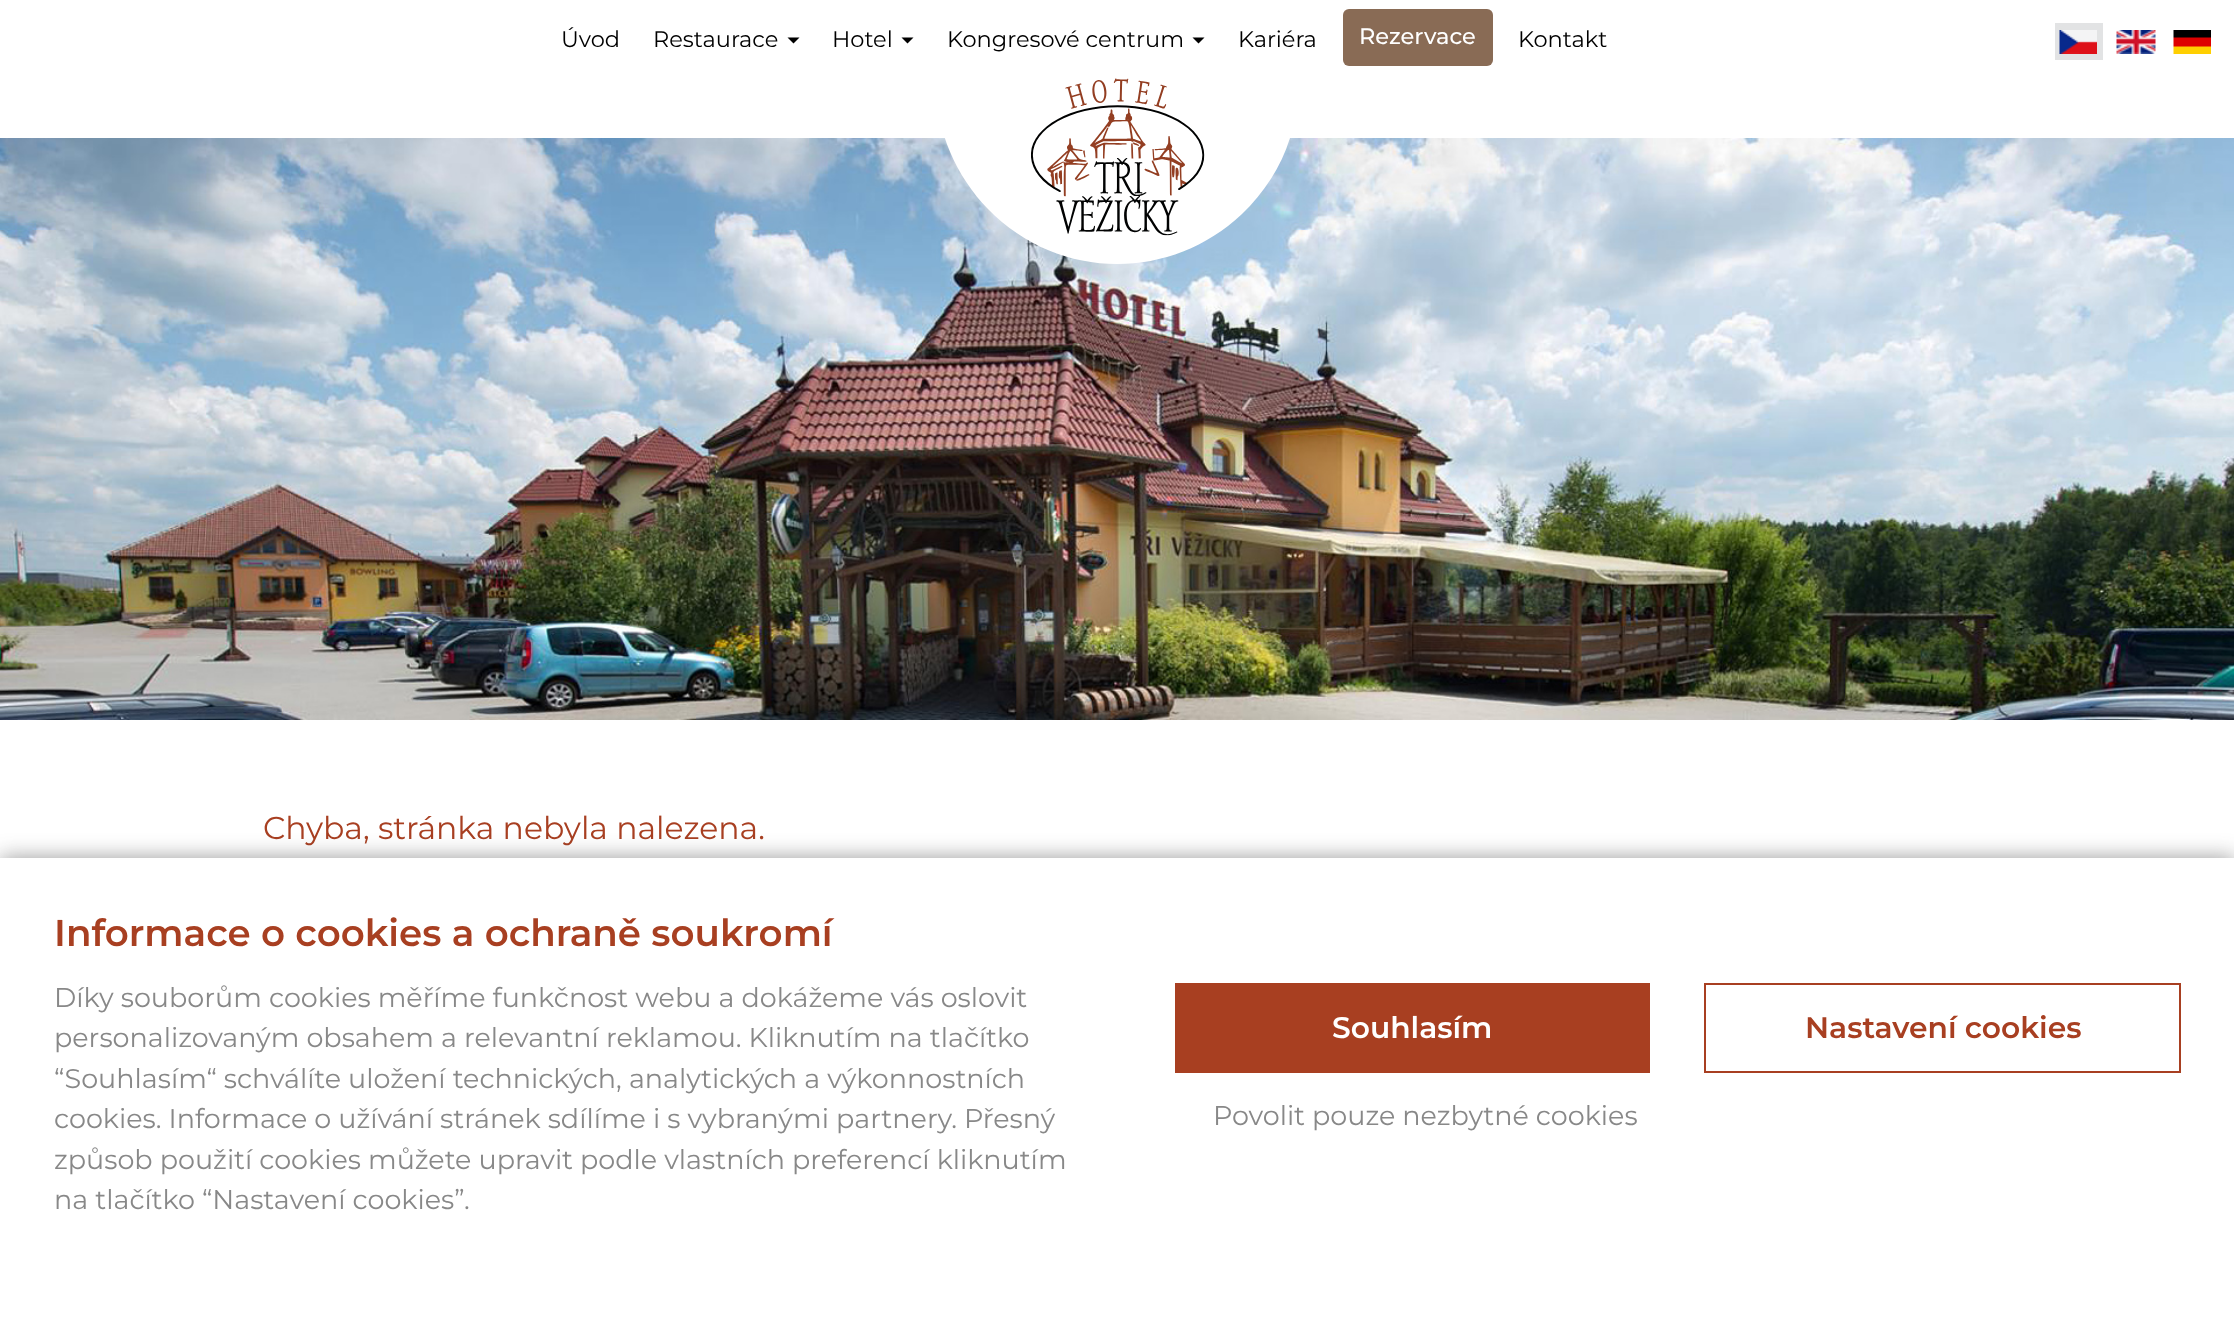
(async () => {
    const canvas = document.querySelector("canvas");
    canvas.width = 2234;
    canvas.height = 1318;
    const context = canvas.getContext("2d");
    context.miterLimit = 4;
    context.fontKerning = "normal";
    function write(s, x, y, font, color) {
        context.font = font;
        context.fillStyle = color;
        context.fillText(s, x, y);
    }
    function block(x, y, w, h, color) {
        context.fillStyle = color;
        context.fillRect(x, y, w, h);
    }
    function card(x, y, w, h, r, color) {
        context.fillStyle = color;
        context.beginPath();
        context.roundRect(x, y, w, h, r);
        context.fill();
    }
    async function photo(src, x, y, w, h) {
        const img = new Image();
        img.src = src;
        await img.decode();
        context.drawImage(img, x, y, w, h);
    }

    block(0, 0, 2234, 1318, "rgb(255, 255, 255)");
    write("Úvod", 561, 47, "22.5px Montserrat", "rgb(0, 0, 0)");
    write("Restaurace", 653, 47, "22.5px Montserrat", "rgb(0, 0, 0)");
    context.beginPath();
    context.moveTo(787.5, 37.5);
    context.lineTo(799.5, 37.5);
    context.lineTo(793.5, 43.5);
    context.closePath();
    context.fill();
    write("Hotel", 832, 47, "22.5px Montserrat", "rgb(0, 0, 0)");
    context.beginPath();
    context.moveTo(901.5, 37.5);
    context.lineTo(913.5, 37.5);
    context.lineTo(907.5, 43.5);
    context.closePath();
    context.fill();
    write("Kongresové centrum", 947, 47, "22.5px Montserrat", "rgb(0, 0, 0)");
    context.beginPath();
    context.moveTo(1192.5, 37.5);
    context.lineTo(1204.5, 37.5);
    context.lineTo(1198.5, 43.5);
    context.closePath();
    context.fill();
    write("Kariéra", 1238, 47, "22.5px Montserrat", "rgb(0, 0, 0)");
    card(1343, 9, 150, 57, 6, "rgb(137, 107, 85)");
    write("Rezervace", 1359, 44, "500 22.5px Montserrat", "rgb(255, 255, 255)");
    write("Kontakt", 1518, 47, "22.5px Montserrat", "rgb(0, 0, 0)");
    block(2055, 23, 48, 37, "rgb(226, 227, 228)");
    await photo("media/1.png", 2059, 30, 38, 24);
    await photo("media/2.png", 2116, 30, 40, 24);
    await photo("media/3.png", 2173, 30, 38, 24);
    await photo("media/5.png", 0, 138, 2234, 582);
    context.fillStyle = "rgb(255, 255, 255)";
    context.beginPath();
    context.moveTo(936, 78);
    context.lineTo(1299, 78);
    context.bezierCurveTo(1299, 98, 1297, 119, 1290, 138);
    context.bezierCurveTo(1281, 167, 1264, 193, 1242, 214);
    context.bezierCurveTo(1170, 282, 1058, 281, 988, 209);
    context.bezierCurveTo(956, 176, 937, 132, 936, 87);
    context.closePath();
    context.fill();
    await photo("media/4.png", 1031, 78, 174, 158);
    write("Chyba, stránka nebyla nalezena.", 263, 839, "31.5px Montserrat", "rgb(168, 63, 33)");
    context.fillStyle = "rgba(50, 50, 50, 0.5)";
    context.filter = "blur(11px)";
    context.beginPath();
    context.rect(0, 858, 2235, 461);
    context.fill();
    context.filter = "none";
    block(0, 858, 2234, 460, "rgb(255, 255, 255)");
    write("Informace o cookies a ochraně soukromí", 54, 946, "600 37.25px Montserrat", "rgb(168, 63, 33)");
    write("Díky souborům cookies měříme funkčnost webu a dokážeme vás oslovit", 54, 1007, "27px Montserrat", "rgb(136, 136, 136)");
    write("personalizovaným obsahem a relevantní reklamou. Kliknutím na tlačítko", 54, 1047, "27px Montserrat", "rgb(136, 136, 136)");
    write("“Souhlasím“ schválíte uložení technických, analytických a výkonnostních", 54, 1088, "27px Montserrat", "rgb(136, 136, 136)");
    write("cookies. Informace o užívání stránek sdílíme i s vybranými partnery. Přesný", 54, 1128, "27px Montserrat", "rgb(136, 136, 136)");
    write("způsob použití cookies můžete upravit podle vlastních preferencí kliknutím", 54, 1169, "27px Montserrat", "rgb(136, 136, 136)");
    write("na tlačítko “Nastavení cookies”.", 54, 1209, "27px Montserrat", "rgb(136, 136, 136)");
    block(1175, 983, 475, 90, "rgb(168, 63, 33)");
    write("Souhlasím", 1332, 1038, "600 29.75px Montserrat", "rgb(255, 255, 255)");
    context.strokeStyle = "rgb(168, 63, 33)";
    context.lineWidth = 2;
    context.strokeRect(1705, 984, 475, 88);
    write("Nastavení cookies", 1805, 1038, "600 29.75px Montserrat", "rgb(168, 63, 33)");
    write("Povolit pouze nezbytné cookies", 1213, 1125, "27px Montserrat", "rgb(136, 136, 136)");
})();
